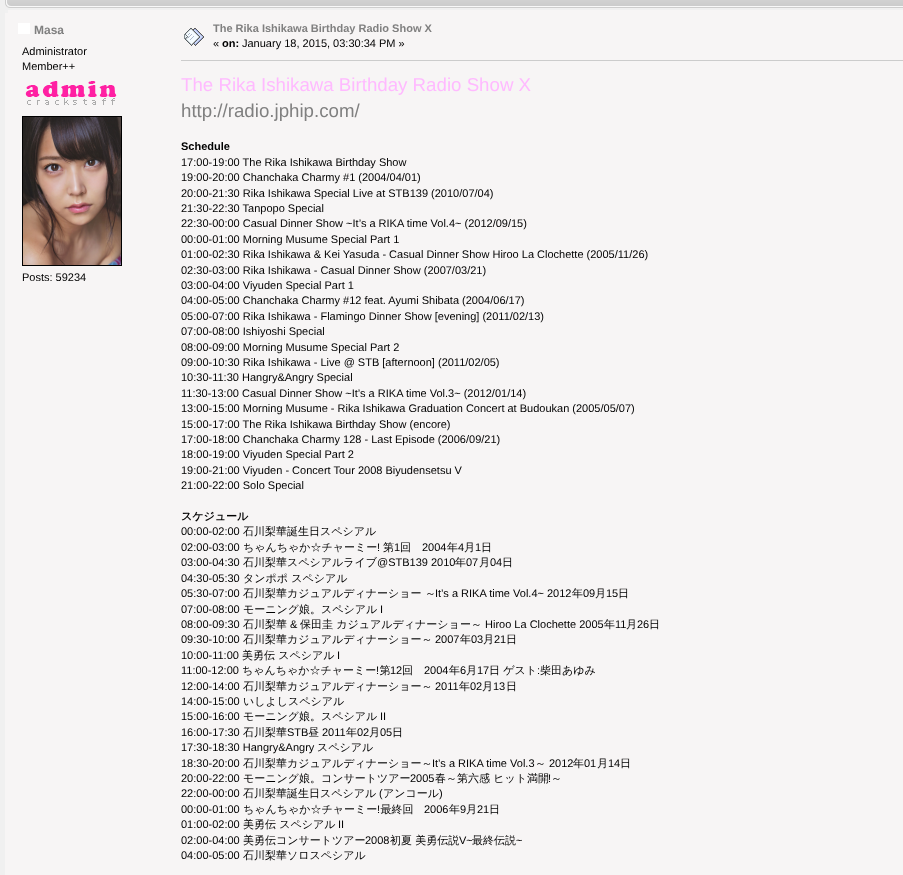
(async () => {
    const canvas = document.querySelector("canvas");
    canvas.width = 903;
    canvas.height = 875;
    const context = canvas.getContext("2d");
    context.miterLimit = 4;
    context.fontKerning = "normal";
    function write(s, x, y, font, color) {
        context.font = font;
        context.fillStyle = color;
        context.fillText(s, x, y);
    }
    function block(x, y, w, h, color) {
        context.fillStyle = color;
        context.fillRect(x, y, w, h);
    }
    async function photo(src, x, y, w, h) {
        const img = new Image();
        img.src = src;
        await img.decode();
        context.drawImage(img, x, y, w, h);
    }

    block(0, 0, 903, 875, "rgb(240, 240, 240)");
    await photo("media/1.png", 5, 0, 898, 8);
    block(5, 10, 898, 865, "rgb(247, 245, 245)");
    block(5, 10, 3, 3, "rgb(241, 241, 241)");
    block(18, 23, 12, 11, "rgb(255, 255, 255)");
    write("Masa", 34, 34, "bold 12px Liberation Sans", "rgb(128, 128, 128)");
    write("Administrator", 22, 55, "11px Liberation Sans", "rgb(0, 0, 0)");
    write("Member++", 22, 70, "11px Liberation Sans", "rgb(0, 0, 0)");
    await photo("media/2.png", 25, 81, 92, 24);
    await photo("media/3.png", 22, 116, 100, 150);
    write("Posts: 59234", 22, 281, "11px Liberation Sans", "rgb(0, 0, 0)");
    await photo("media/4.png", 184, 28, 20, 18);
    write("The Rika Ishikawa Birthday Radio Show X", 213, 32, "bold 11px Liberation Sans", "rgb(128, 128, 128)");
    write("«", 213, 47, "11px Liberation Sans", "rgb(0, 0, 0)");
    write("on:", 222, 47, "bold 11px Liberation Sans", "rgb(0, 0, 0)");
    write("January 18, 2015, 03:30:34 PM »", 242, 47, "11px Liberation Sans", "rgb(0, 0, 0)");
    block(181, 60, 722, 1, "rgb(204, 204, 204)");
    write("The Rika Ishikawa Birthday Radio Show X", 181, 91, "18.7px Liberation Sans", "rgb(255, 186, 255)");
    write("http://radio.jphip.com/", 181, 117, "18.7px Liberation Sans", "rgb(128, 128, 128)");
    write("Schedule", 181, 150, "bold 11px Liberation Sans", "rgb(0, 0, 0)");
    write("17:00-19:00 The Rika Ishikawa Birthday Show", 181, 166, "11px Liberation Sans", "rgb(0, 0, 0)");
    write("19:00-20:00 Chanchaka Charmy #1 (2004/04/01)", 181, 181, "11px Liberation Sans", "rgb(0, 0, 0)");
    write("20:00-21:30 Rika Ishikawa Special Live at STB139 (2010/07/04)", 181, 197, "11px Liberation Sans", "rgb(0, 0, 0)");
    write("21:30-22:30 Tanpopo Special", 181, 212, "11px Liberation Sans", "rgb(0, 0, 0)");
    write("22:30-00:00 Casual Dinner Show ~It’s a RIKA time Vol.4~ (2012/09/15)", 181, 227, "11px Liberation Sans", "rgb(0, 0, 0)");
    write("00:00-01:00 Morning Musume Special Part 1", 181, 243, "11px Liberation Sans", "rgb(0, 0, 0)");
    write("01:00-02:30 Rika Ishikawa & Kei Yasuda - Casual Dinner Show Hiroo La Clochette (2005/11/26)", 181, 258, "11px Liberation Sans", "rgb(0, 0, 0)");
    write("02:30-03:00 Rika Ishikawa - Casual Dinner Show (2007/03/21)", 181, 274, "11px Liberation Sans", "rgb(0, 0, 0)");
    write("03:00-04:00 Viyuden Special Part 1", 181, 289, "11px Liberation Sans", "rgb(0, 0, 0)");
    write("04:00-05:00 Chanchaka Charmy #12 feat. Ayumi Shibata (2004/06/17)", 181, 304, "11px Liberation Sans", "rgb(0, 0, 0)");
    write("05:00-07:00 Rika Ishikawa - Flamingo Dinner Show [evening] (2011/02/13)", 181, 320, "11px Liberation Sans", "rgb(0, 0, 0)");
    write("07:00-08:00 Ishiyoshi Special", 181, 335, "11px Liberation Sans", "rgb(0, 0, 0)");
    write("08:00-09:00 Morning Musume Special Part 2", 181, 351, "11px Liberation Sans", "rgb(0, 0, 0)");
    write("09:00-10:30 Rika Ishikawa - Live @ STB [afternoon] (2011/02/05)", 181, 366, "11px Liberation Sans", "rgb(0, 0, 0)");
    write("10:30-11:30 Hangry&Angry Special", 181, 381, "11px Liberation Sans", "rgb(0, 0, 0)");
    write("11:30-13:00 Casual Dinner Show ~It’s a RIKA time Vol.3~ (2012/01/14)", 181, 397, "11px Liberation Sans", "rgb(0, 0, 0)");
    write("13:00-15:00 Morning Musume - Rika Ishikawa Graduation Concert at Budoukan (2005/05/07)", 181, 412, "11px Liberation Sans", "rgb(0, 0, 0)");
    write("15:00-17:00 The Rika Ishikawa Birthday Show (encore)", 181, 428, "11px Liberation Sans", "rgb(0, 0, 0)");
    write("17:00-18:00 Chanchaka Charmy 128 - Last Episode (2006/09/21)", 181, 443, "11px Liberation Sans", "rgb(0, 0, 0)");
    write("18:00-19:00 Viyuden Special Part 2", 181, 458, "11px Liberation Sans", "rgb(0, 0, 0)");
    write("19:00-21:00 Viyuden - Concert Tour 2008 Biyudensetsu V", 181, 474, "11px Liberation Sans", "rgb(0, 0, 0)");
    write("21:00-22:00 Solo Special", 181, 489, "11px Liberation Sans", "rgb(0, 0, 0)");
    write("スケジュール", 181, 520, "bold 11px WenQuanYi Zen Hei", "rgb(0, 0, 0)");
    write("00:00-02:00", 181, 535, "11px Liberation Sans", "rgb(0, 0, 0)");
    write("石川梨華誕生日スペシアル", 243, 535, "500 11px WenQuanYi Zen Hei", "rgb(0, 0, 0)");
    write("02:00-03:00", 181, 551, "11px Liberation Sans", "rgb(0, 0, 0)");
    write("ちゃんちゃか☆チャーミー", 243, 551, "500 11px WenQuanYi Zen Hei", "rgb(0, 0, 0)");
    write("!", 377, 551, "11px Liberation Sans", "rgb(0, 0, 0)");
    write("第", 383, 551, "500 11px WenQuanYi Zen Hei", "rgb(0, 0, 0)");
    write("1", 394, 551, "11px Liberation Sans", "rgb(0, 0, 0)");
    write("回", 400, 551, "500 11px WenQuanYi Zen Hei", "rgb(0, 0, 0)");
    write("2004", 422, 551, "11px Liberation Sans", "rgb(0, 0, 0)");
    write("年", 447, 551, "500 11px WenQuanYi Zen Hei", "rgb(0, 0, 0)");
    write("4", 458, 551, "11px Liberation Sans", "rgb(0, 0, 0)");
    write("月", 464, 551, "500 11px WenQuanYi Zen Hei", "rgb(0, 0, 0)");
    write("1", 475, 551, "11px Liberation Sans", "rgb(0, 0, 0)");
    write("日", 481, 551, "500 11px WenQuanYi Zen Hei", "rgb(0, 0, 0)");
    write("03:00-04:30", 181, 566, "11px Liberation Sans", "rgb(0, 0, 0)");
    write("石川梨華スペシアルライブ", 243, 566, "500 11px WenQuanYi Zen Hei", "rgb(0, 0, 0)");
    write("@STB139 2010", 377, 566, "11px Liberation Sans", "rgb(0, 0, 0)");
    write("年", 455, 566, "500 11px WenQuanYi Zen Hei", "rgb(0, 0, 0)");
    write("07", 466, 566, "11px Liberation Sans", "rgb(0, 0, 0)");
    write("月", 479, 566, "500 11px WenQuanYi Zen Hei", "rgb(0, 0, 0)");
    write("04", 490, 566, "11px Liberation Sans", "rgb(0, 0, 0)");
    write("日", 502, 566, "500 11px WenQuanYi Zen Hei", "rgb(0, 0, 0)");
    write("04:30-05:30", 181, 582, "11px Liberation Sans", "rgb(0, 0, 0)");
    write("タンポポ スペシアル", 243, 582, "500 11px WenQuanYi Zen Hei", "rgb(0, 0, 0)");
    write("05:30-07:00", 181, 597, "11px Liberation Sans", "rgb(0, 0, 0)");
    write("石川梨華カジュアルディナーショー ～", 243, 597, "500 11px WenQuanYi Zen Hei", "rgb(0, 0, 0)");
    write("It’s a RIKA time Vol.4~ 2012", 435, 597, "11px Liberation Sans", "rgb(0, 0, 0)");
    write("年", 572, 597, "500 11px WenQuanYi Zen Hei", "rgb(0, 0, 0)");
    write("09", 583, 597, "11px Liberation Sans", "rgb(0, 0, 0)");
    write("月", 595, 597, "500 11px WenQuanYi Zen Hei", "rgb(0, 0, 0)");
    write("15", 606, 597, "11px Liberation Sans", "rgb(0, 0, 0)");
    write("日", 618, 597, "500 11px WenQuanYi Zen Hei", "rgb(0, 0, 0)");
    write("07:00-08:00", 181, 613, "11px Liberation Sans", "rgb(0, 0, 0)");
    write("モーニング娘。スペシアル", 243, 613, "500 11px WenQuanYi Zen Hei", "rgb(0, 0, 0)");
    write("I", 380, 613, "11px Liberation Sans", "rgb(0, 0, 0)");
    write("08:00-09:30", 181, 628, "11px Liberation Sans", "rgb(0, 0, 0)");
    write("石川梨華", 243, 628, "500 11px WenQuanYi Zen Hei", "rgb(0, 0, 0)");
    write("&", 290, 628, "11px Liberation Sans", "rgb(0, 0, 0)");
    write("保田圭 カジュアルディナーショー～", 300, 628, "500 11px WenQuanYi Zen Hei", "rgb(0, 0, 0)");
    write("Hiroo La Clochette 2005", 485, 628, "11px Liberation Sans", "rgb(0, 0, 0)");
    write("年", 604, 628, "500 11px WenQuanYi Zen Hei", "rgb(0, 0, 0)");
    write("11", 615, 628, "11px Liberation Sans", "rgb(0, 0, 0)");
    write("月", 626, 628, "500 11px WenQuanYi Zen Hei", "rgb(0, 0, 0)");
    write("26", 637, 628, "11px Liberation Sans", "rgb(0, 0, 0)");
    write("日", 649, 628, "500 11px WenQuanYi Zen Hei", "rgb(0, 0, 0)");
    write("09:30-10:00", 181, 643, "11px Liberation Sans", "rgb(0, 0, 0)");
    write("石川梨華カジュアルディナーショー～", 243, 643, "500 11px WenQuanYi Zen Hei", "rgb(0, 0, 0)");
    write("2007", 435, 643, "11px Liberation Sans", "rgb(0, 0, 0)");
    write("年", 460, 643, "500 11px WenQuanYi Zen Hei", "rgb(0, 0, 0)");
    write("03", 471, 643, "11px Liberation Sans", "rgb(0, 0, 0)");
    write("月", 483, 643, "500 11px WenQuanYi Zen Hei", "rgb(0, 0, 0)");
    write("21", 494, 643, "11px Liberation Sans", "rgb(0, 0, 0)");
    write("日", 506, 643, "500 11px WenQuanYi Zen Hei", "rgb(0, 0, 0)");
    write("10:00-11:00", 181, 659, "11px Liberation Sans", "rgb(0, 0, 0)");
    write("美勇伝 スペシアル", 242, 659, "500 11px WenQuanYi Zen Hei", "rgb(0, 0, 0)");
    write("I", 337, 659, "11px Liberation Sans", "rgb(0, 0, 0)");
    write("11:00-12:00", 181, 674, "11px Liberation Sans", "rgb(0, 0, 0)");
    write("ちゃんちゃか☆チャーミー 第", 242, 674, "500 11px WenQuanYi Zen Hei", "rgb(0, 0, 0)");
    write("回", 402, 674, "500 11px WenQuanYi Zen Hei", "rgb(0, 0, 0)");
    write("2004", 424, 674, "11px Liberation Sans", "rgb(0, 0, 0)");
    write("年", 449, 674, "500 11px WenQuanYi Zen Hei", "rgb(0, 0, 0)");
    write("月", 466, 674, "500 11px WenQuanYi Zen Hei", "rgb(0, 0, 0)");
    write("日 ゲスト", 489, 674, "500 11px WenQuanYi Zen Hei", "rgb(0, 0, 0)");
    write("柴田あゆみ", 540, 674, "500 11px WenQuanYi Zen Hei", "rgb(0, 0, 0)");
    write("!", 376, 674, "11px Liberation Sans", "rgb(0, 0, 0)");
    write("12", 390, 674, "11px Liberation Sans", "rgb(0, 0, 0)");
    write("6", 460, 674, "11px Liberation Sans", "rgb(0, 0, 0)");
    write("17", 477, 674, "11px Liberation Sans", "rgb(0, 0, 0)");
    write(":", 537, 674, "11px Liberation Sans", "rgb(0, 0, 0)");
    write("12:00-14:00", 181, 690, "11px Liberation Sans", "rgb(0, 0, 0)");
    write("石川梨華カジュアルディナーショー～", 243, 690, "500 11px WenQuanYi Zen Hei", "rgb(0, 0, 0)");
    write("2011", 435, 690, "11px Liberation Sans", "rgb(0, 0, 0)");
    write("年", 459, 690, "500 11px WenQuanYi Zen Hei", "rgb(0, 0, 0)");
    write("02", 470, 690, "11px Liberation Sans", "rgb(0, 0, 0)");
    write("月", 482, 690, "500 11px WenQuanYi Zen Hei", "rgb(0, 0, 0)");
    write("13", 493, 690, "11px Liberation Sans", "rgb(0, 0, 0)");
    write("日", 506, 690, "500 11px WenQuanYi Zen Hei", "rgb(0, 0, 0)");
    write("14:00-15:00", 181, 705, "11px Liberation Sans", "rgb(0, 0, 0)");
    write("いしよしスペシアル", 243, 705, "500 11px WenQuanYi Zen Hei", "rgb(0, 0, 0)");
    write("15:00-16:00", 181, 720, "11px Liberation Sans", "rgb(0, 0, 0)");
    write("モーニング娘。スペシアル", 243, 720, "500 11px WenQuanYi Zen Hei", "rgb(0, 0, 0)");
    write("II", 380, 720, "11px Liberation Sans", "rgb(0, 0, 0)");
    write("16:00-17:30", 181, 736, "11px Liberation Sans", "rgb(0, 0, 0)");
    write("石川梨華", 243, 736, "500 11px WenQuanYi Zen Hei", "rgb(0, 0, 0)");
    write("STB", 287, 736, "11px Liberation Sans", "rgb(0, 0, 0)");
    write("昼", 308, 736, "500 11px WenQuanYi Zen Hei", "rgb(0, 0, 0)");
    write("2011", 322, 736, "11px Liberation Sans", "rgb(0, 0, 0)");
    write("年", 346, 736, "500 11px WenQuanYi Zen Hei", "rgb(0, 0, 0)");
    write("02", 357, 736, "11px Liberation Sans", "rgb(0, 0, 0)");
    write("月", 369, 736, "500 11px WenQuanYi Zen Hei", "rgb(0, 0, 0)");
    write("05", 380, 736, "11px Liberation Sans", "rgb(0, 0, 0)");
    write("日", 392, 736, "500 11px WenQuanYi Zen Hei", "rgb(0, 0, 0)");
    write("17:30-18:30 Hangry&Angry", 181, 751, "11px Liberation Sans", "rgb(0, 0, 0)");
    write("スペシアル", 317, 751, "500 11px WenQuanYi Zen Hei", "rgb(0, 0, 0)");
    write("18:30-20:00", 181, 767, "11px Liberation Sans", "rgb(0, 0, 0)");
    write("石川梨華カジュアルディナーショー～", 243, 767, "500 11px WenQuanYi Zen Hei", "rgb(0, 0, 0)");
    write("It’s a RIKA time Vol.3", 432, 767, "11px Liberation Sans", "rgb(0, 0, 0)");
    write("～", 535, 767, "500 11px WenQuanYi Zen Hei", "rgb(0, 0, 0)");
    write("2012", 549, 767, "11px Liberation Sans", "rgb(0, 0, 0)");
    write("年", 573, 767, "500 11px WenQuanYi Zen Hei", "rgb(0, 0, 0)");
    write("01", 584, 767, "11px Liberation Sans", "rgb(0, 0, 0)");
    write("月", 597, 767, "500 11px WenQuanYi Zen Hei", "rgb(0, 0, 0)");
    write("14", 608, 767, "11px Liberation Sans", "rgb(0, 0, 0)");
    write("日", 620, 767, "500 11px WenQuanYi Zen Hei", "rgb(0, 0, 0)");
    write("20:00-22:00", 181, 782, "11px Liberation Sans", "rgb(0, 0, 0)");
    write("モーニング娘。コンサートツアー", 243, 782, "500 11px WenQuanYi Zen Hei", "rgb(0, 0, 0)");
    write("2005", 410, 782, "11px Liberation Sans", "rgb(0, 0, 0)");
    write("春～第六感 ヒット満開", 435, 782, "500 11px WenQuanYi Zen Hei", "rgb(0, 0, 0)");
    write("!", 548, 782, "11px Liberation Sans", "rgb(0, 0, 0)");
    write("～", 551, 782, "500 11px WenQuanYi Zen Hei", "rgb(0, 0, 0)");
    write("22:00-00:00", 181, 797, "11px Liberation Sans", "rgb(0, 0, 0)");
    write("石川梨華誕生日スペシアル", 243, 797, "500 11px WenQuanYi Zen Hei", "rgb(0, 0, 0)");
    write("(", 379, 797, "11px Liberation Sans", "rgb(0, 0, 0)");
    write("アンコール", 383, 797, "500 11px WenQuanYi Zen Hei", "rgb(0, 0, 0)");
    write(")", 439, 797, "11px Liberation Sans", "rgb(0, 0, 0)");
    write("00:00-01:00", 181, 813, "11px Liberation Sans", "rgb(0, 0, 0)");
    write("ちゃんちゃか☆チャーミー 最終回", 243, 813, "500 11px WenQuanYi Zen Hei", "rgb(0, 0, 0)");
    write("2006", 424, 813, "11px Liberation Sans", "rgb(0, 0, 0)");
    write("年", 449, 813, "500 11px WenQuanYi Zen Hei", "rgb(0, 0, 0)");
    write("月", 466, 813, "500 11px WenQuanYi Zen Hei", "rgb(0, 0, 0)");
    write("日", 489, 813, "500 11px WenQuanYi Zen Hei", "rgb(0, 0, 0)");
    write("!", 377, 813, "11px Liberation Sans", "rgb(0, 0, 0)");
    write("9", 460, 813, "11px Liberation Sans", "rgb(0, 0, 0)");
    write("21", 477, 813, "11px Liberation Sans", "rgb(0, 0, 0)");
    write("01:00-02:00", 181, 828, "11px Liberation Sans", "rgb(0, 0, 0)");
    write("美勇伝 スペシアル", 243, 828, "500 11px WenQuanYi Zen Hei", "rgb(0, 0, 0)");
    write("II", 338, 828, "11px Liberation Sans", "rgb(0, 0, 0)");
    write("02:00-04:00", 181, 844, "11px Liberation Sans", "rgb(0, 0, 0)");
    write("美勇伝コンサートツアー", 243, 844, "500 11px WenQuanYi Zen Hei", "rgb(0, 0, 0)");
    write("2008", 365, 844, "11px Liberation Sans", "rgb(0, 0, 0)");
    write("初夏 美勇伝説", 390, 844, "500 11px WenQuanYi Zen Hei", "rgb(0, 0, 0)");
    write("V~", 459, 844, "11px Liberation Sans", "rgb(0, 0, 0)");
    write("最終伝説", 472, 844, "500 11px WenQuanYi Zen Hei", "rgb(0, 0, 0)");
    write("~", 516, 844, "11px Liberation Sans", "rgb(0, 0, 0)");
    write("04:00-05:00", 181, 859, "11px Liberation Sans", "rgb(0, 0, 0)");
    write("石川梨華ソロスペシアル", 243, 859, "500 11px WenQuanYi Zen Hei", "rgb(0, 0, 0)");
})();
